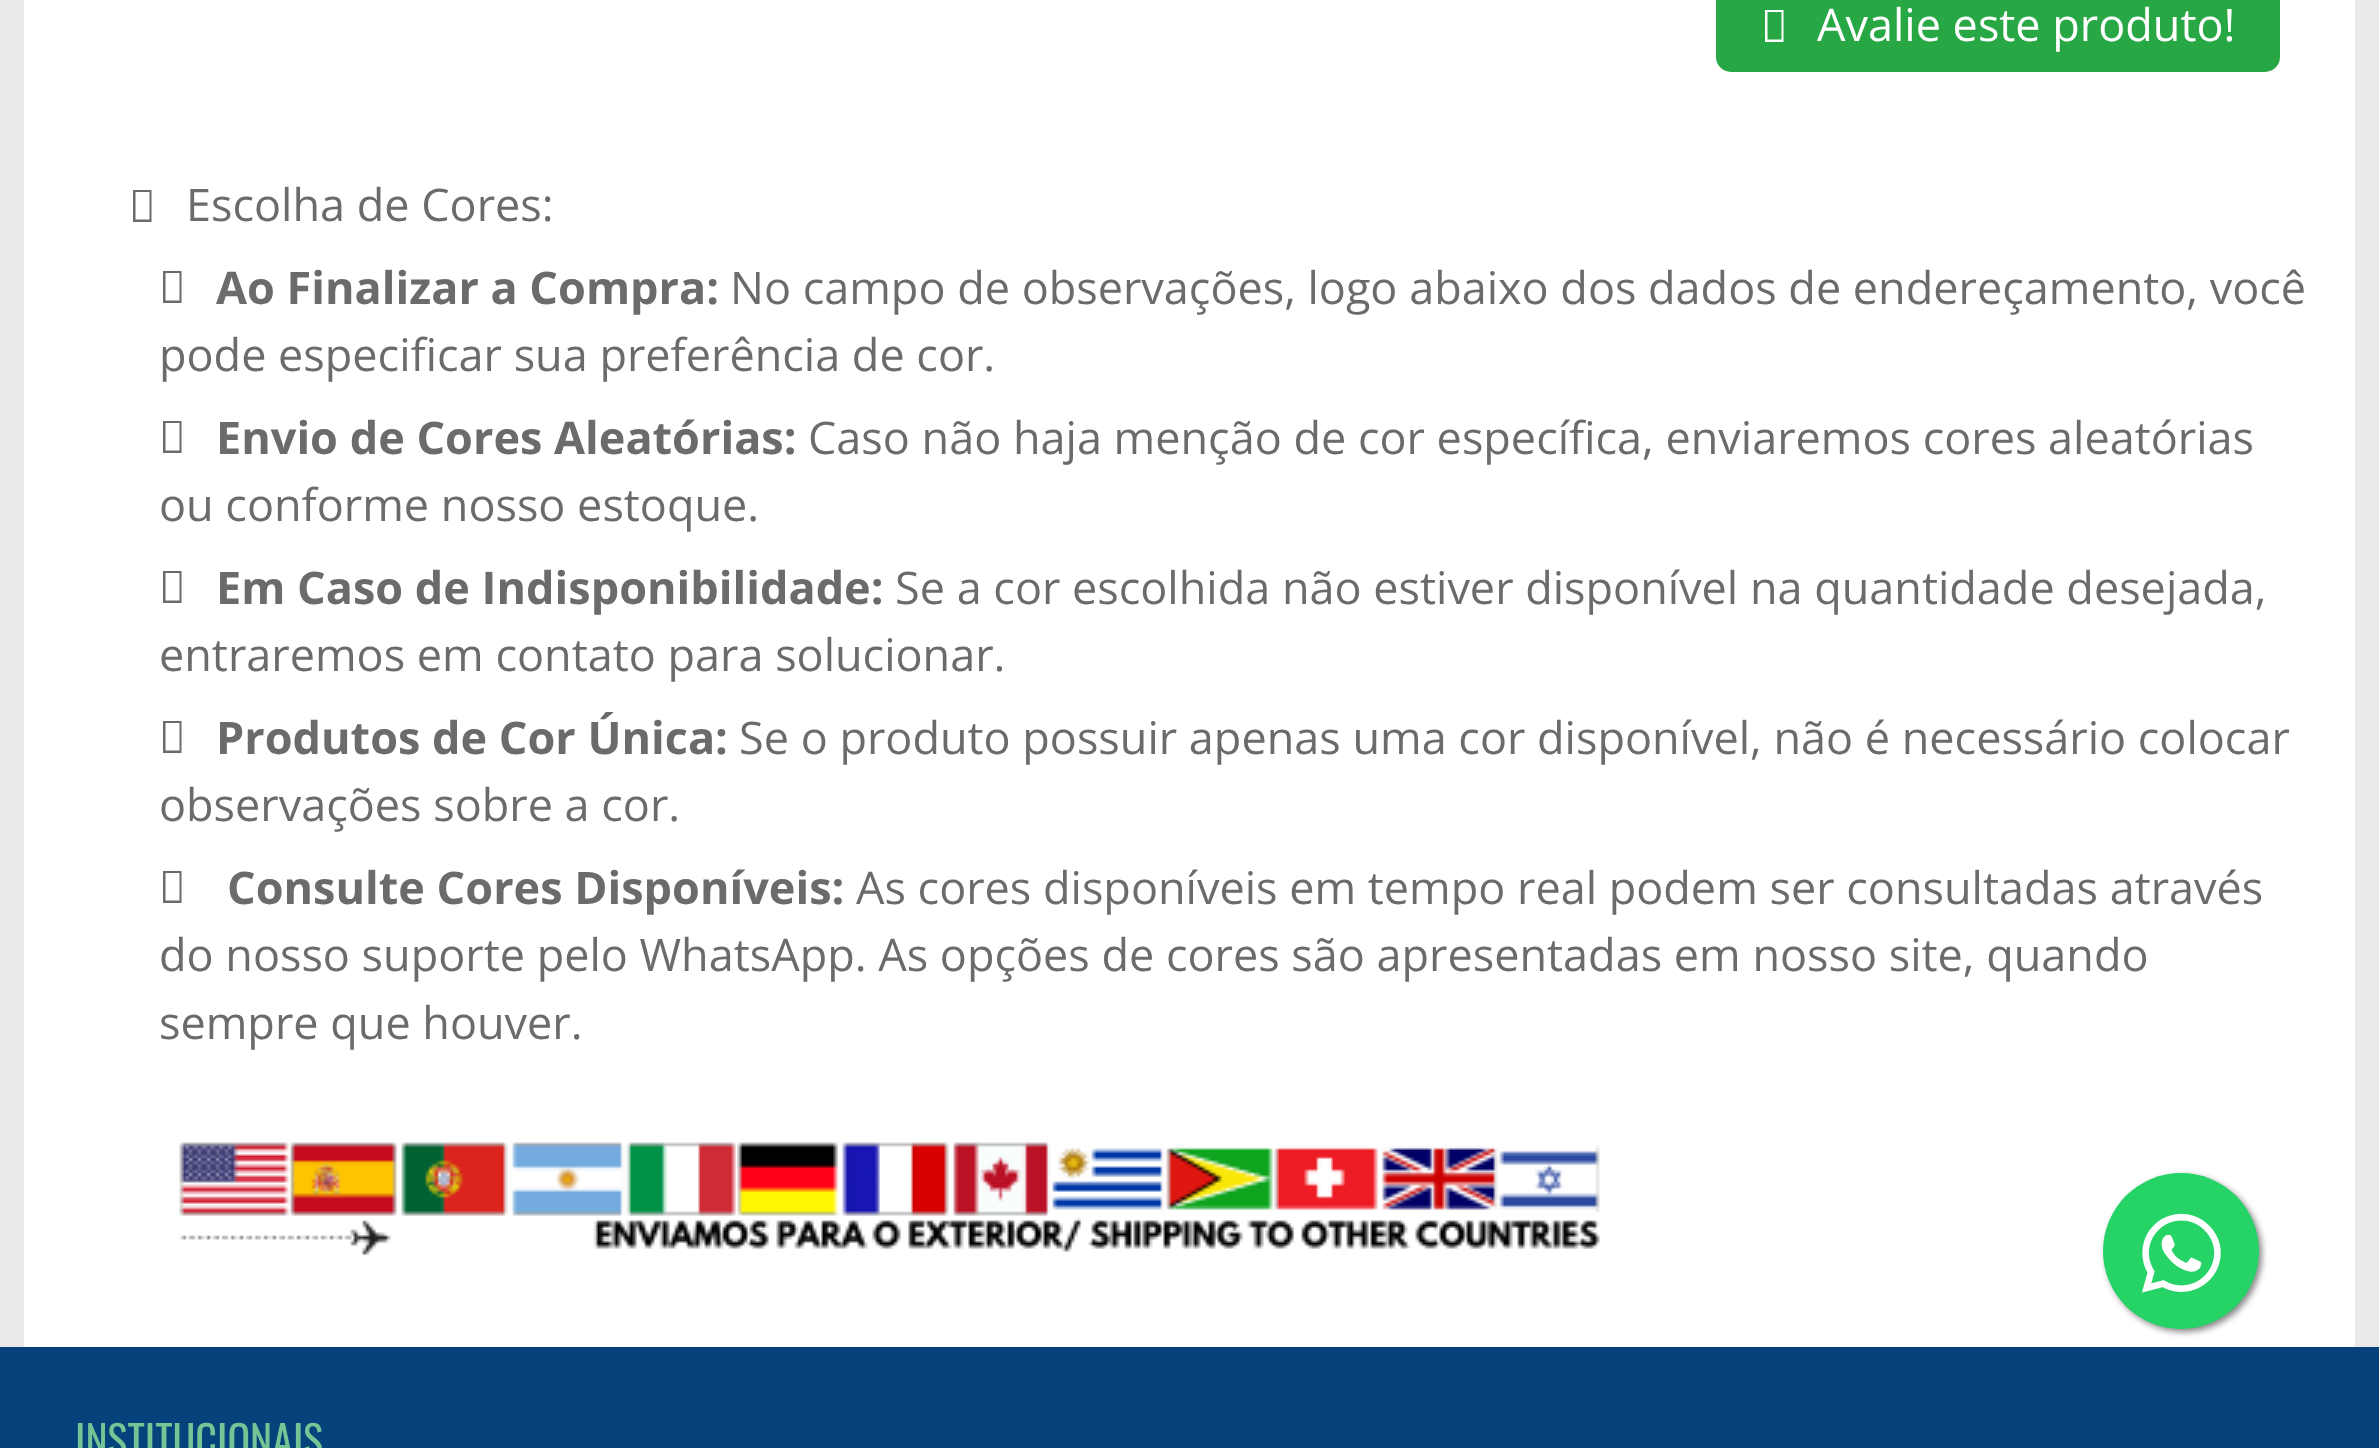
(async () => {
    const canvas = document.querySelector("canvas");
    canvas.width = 2379;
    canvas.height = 1448;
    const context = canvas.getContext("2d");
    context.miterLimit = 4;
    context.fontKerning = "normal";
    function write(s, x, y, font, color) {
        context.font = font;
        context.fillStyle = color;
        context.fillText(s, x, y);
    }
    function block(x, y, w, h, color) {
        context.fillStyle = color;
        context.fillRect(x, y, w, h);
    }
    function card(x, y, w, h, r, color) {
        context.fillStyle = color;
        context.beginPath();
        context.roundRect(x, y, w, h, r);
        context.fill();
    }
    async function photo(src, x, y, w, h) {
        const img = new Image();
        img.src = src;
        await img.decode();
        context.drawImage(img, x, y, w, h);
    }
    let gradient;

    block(0, 0, 2379, 1448, "rgb(234, 234, 234)");
    block(24, 0, 2331, 1347, "rgb(255, 255, 255)");
    card(1716, -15, 564, 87, 15, "rgb(40, 167, 69)");
    context.fillStyle = "rgb(255, 255, 255)";
    context.beginPath();
    context.moveTo(1765, 42);
    context.lineTo(1765, 10);
    context.lineTo(1783.5, 10);
    context.lineTo(1783.5, 42);
    context.closePath();
    context.moveTo(1767.5, 39.5);
    context.lineTo(1781.5, 39.5);
    context.lineTo(1781.5, 12);
    context.lineTo(1767.5, 12);
    context.closePath();
    context.fill();
    write("Avalie este produto!", 1817, 41, "45px Open Sans", "rgb(255, 255, 255)");
    context.fillStyle = "rgb(107, 107, 107)";
    context.beginPath();
    context.moveTo(133, 222);
    context.lineTo(133, 190);
    context.lineTo(151.5, 190);
    context.lineTo(151.5, 222);
    context.closePath();
    context.moveTo(135.5, 219.5);
    context.lineTo(149.5, 219.5);
    context.lineTo(149.5, 192);
    context.lineTo(135.5, 192);
    context.closePath();
    context.fill();
    write("Escolha de Cores:", 186, 221, "45px Open Sans", "rgb(107, 107, 107)");
    context.beginPath();
    context.moveTo(163, 303);
    context.lineTo(163, 271);
    context.lineTo(181.5, 271);
    context.lineTo(181.5, 303);
    context.closePath();
    context.moveTo(165.5, 300.5);
    context.lineTo(179.5, 300.5);
    context.lineTo(179.5, 273);
    context.lineTo(165.5, 273);
    context.closePath();
    context.fill();
    write("Ao Finalizar a Compra:", 216, 304, "bold 45px Open Sans", "rgb(107, 107, 107)");
    write("No campo de observações, logo abaixo dos dados de endereçamento, você", 730, 304, "45px Open Sans", "rgb(107, 107, 107)");
    write("pode especificar sua preferência de cor.", 159, 371, "45px Open Sans", "rgb(107, 107, 107)");
    context.beginPath();
    context.moveTo(163, 453);
    context.lineTo(163, 421);
    context.lineTo(181.5, 421);
    context.lineTo(181.5, 453);
    context.closePath();
    context.moveTo(165.5, 450.5);
    context.lineTo(179.5, 450.5);
    context.lineTo(179.5, 423);
    context.lineTo(165.5, 423);
    context.closePath();
    context.fill();
    write("Envio de Cores Aleatórias:", 216, 454, "bold 45px Open Sans", "rgb(107, 107, 107)");
    write("Caso não haja menção de cor específica, enviaremos cores aleatórias", 808, 454, "45px Open Sans", "rgb(107, 107, 107)");
    write("ou conforme nosso estoque.", 159, 521, "45px Open Sans", "rgb(107, 107, 107)");
    context.beginPath();
    context.moveTo(163, 603);
    context.lineTo(163, 571);
    context.lineTo(181.5, 571);
    context.lineTo(181.5, 603);
    context.closePath();
    context.moveTo(165.5, 600.5);
    context.lineTo(179.5, 600.5);
    context.lineTo(179.5, 573);
    context.lineTo(165.5, 573);
    context.closePath();
    context.fill();
    write("Em Caso de Indisponibilidade:", 216, 604, "bold 45px Open Sans", "rgb(107, 107, 107)");
    write("Se a cor escolhida não estiver disponível na quantidade desejada,", 895, 604, "45px Open Sans", "rgb(107, 107, 107)");
    write("entraremos em contato para solucionar.", 159, 671, "45px Open Sans", "rgb(107, 107, 107)");
    context.beginPath();
    context.moveTo(163, 753);
    context.lineTo(163, 721);
    context.lineTo(181.5, 721);
    context.lineTo(181.5, 753);
    context.closePath();
    context.moveTo(165.5, 750.5);
    context.lineTo(179.5, 750.5);
    context.lineTo(179.5, 723);
    context.lineTo(165.5, 723);
    context.closePath();
    context.fill();
    write("Produtos de Cor Única:", 216, 754, "bold 45px Open Sans", "rgb(107, 107, 107)");
    write("Se o produto possuir apenas uma cor disponível, não é necessário colocar", 739, 754, "45px Open Sans", "rgb(107, 107, 107)");
    write("observações sobre a cor.", 159, 821, "45px Open Sans", "rgb(107, 107, 107)");
    context.beginPath();
    context.moveTo(163, 903);
    context.lineTo(163, 871);
    context.lineTo(181.5, 871);
    context.lineTo(181.5, 903);
    context.closePath();
    context.moveTo(165.5, 900.5);
    context.lineTo(179.5, 900.5);
    context.lineTo(179.5, 873);
    context.lineTo(165.5, 873);
    context.closePath();
    context.fill();
    write("Consulte Cores Disponíveis:", 227, 904, "bold 45px Open Sans", "rgb(107, 107, 107)");
    write("As cores disponíveis em tempo real podem ser consultadas através", 856, 904, "45px Open Sans", "rgb(107, 107, 107)");
    write("do nosso suporte pelo WhatsApp. As opções de cores são apresentadas em nosso site, quando", 159, 971, "45px Open Sans", "rgb(107, 107, 107)");
    write("sempre que houver.", 159, 1039, "45px Open Sans", "rgb(107, 107, 107)");
    await photo("media/1.png", 179, 1142, 1422, 115);
    context.fillStyle = "rgb(136, 136, 136)";
    context.filter = "blur(3px)";
    context.beginPath();
    context.roundRect(2106, 1176, 156, 156, 78);
    context.fill();
    context.filter = "none";
    context.fillStyle = "rgb(37, 211, 102)";
    context.beginPath();
    context.arc(2181, 1251, 78, 0, Math.PI * 2);
    context.fill();
    await photo("media/2.png", 2142, 1213, 79, 80);
    gradient = context.createLinearGradient(1189, 1347, 1190, 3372);
    gradient.addColorStop(0, "rgb(6, 65, 123)");
    gradient.addColorStop(1, "rgb(0, 75, 117)");
    context.fillStyle = gradient;
    context.fillRect(0, 1347, 2379, 101);
    write("INSTITUCIONAIS", 75, 1457, "42px Oswald", "rgb(116, 197, 149)");
})();
